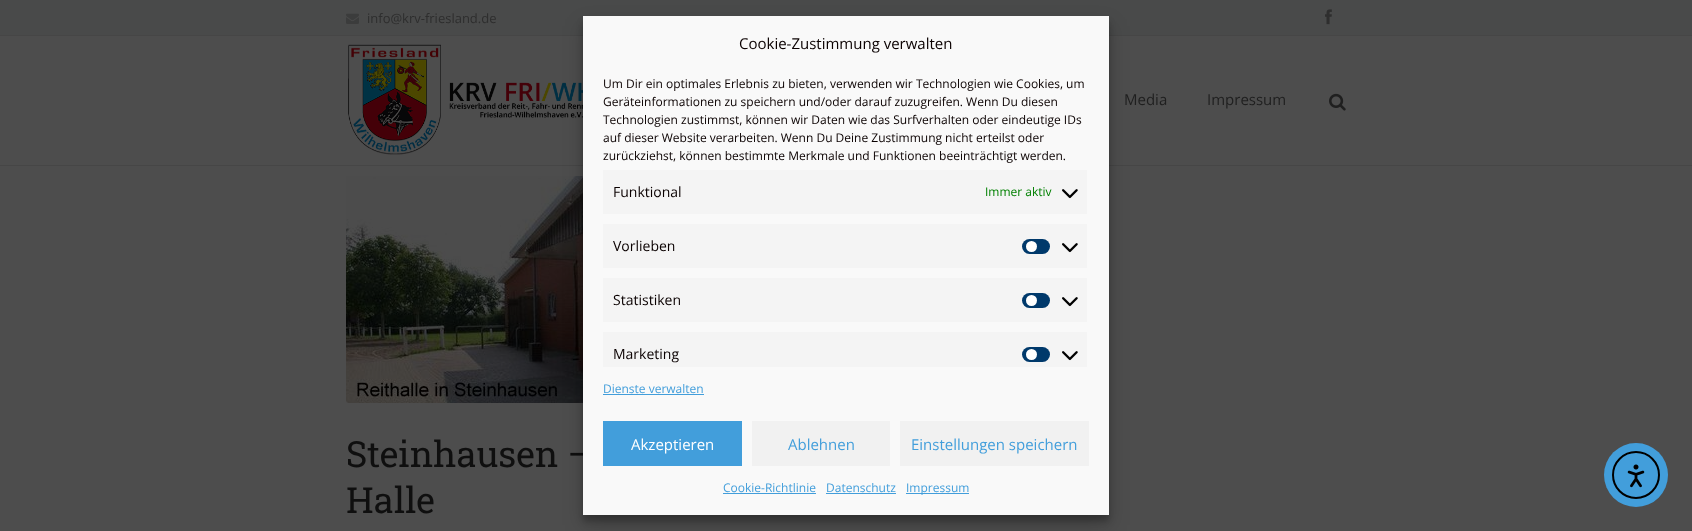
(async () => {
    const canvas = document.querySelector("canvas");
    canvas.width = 1692;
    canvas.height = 531;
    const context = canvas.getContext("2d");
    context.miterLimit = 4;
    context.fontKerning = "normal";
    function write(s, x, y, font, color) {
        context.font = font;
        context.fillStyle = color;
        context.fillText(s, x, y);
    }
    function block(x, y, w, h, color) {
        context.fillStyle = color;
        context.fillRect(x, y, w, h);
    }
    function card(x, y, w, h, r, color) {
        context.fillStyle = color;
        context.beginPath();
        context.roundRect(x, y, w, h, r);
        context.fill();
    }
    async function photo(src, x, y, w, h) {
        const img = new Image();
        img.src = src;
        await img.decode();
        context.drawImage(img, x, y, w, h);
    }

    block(0, 0, 1692, 531, "rgb(77, 77, 77)");
    block(0, 0, 1692, 35, "rgb(73, 74, 74)");
    block(0, 35, 1692, 1, "rgb(70, 70, 70)");
    await photo("media/1.png", 346, 13, 13, 11);
    write("info@krv-friesland.de", 367, 23, "13px Open Sans", "rgb(46, 46, 46)");
    await photo("media/2.png", 1325, 9, 7, 16);
    block(0, 165, 1692, 1, "rgb(70, 70, 70)");
    await photo("media/3.png", 348, 44, 235, 111);
    write("Media", 1124, 105, "15px Open Sans", "rgb(31, 31, 31)");
    write("Impressum", 1207, 105, "15px Open Sans", "rgb(31, 31, 31)");
    await photo("media/4.png", 1329, 93, 17, 18);
    await photo("media/5.png", 346, 176, 237, 227);
    write("Steinhausen –", 346, 467, "36px Roboto Slab", "rgb(15, 15, 15)");
    write("Halle", 346, 513, "36px Roboto Slab", "rgb(15, 15, 15)");
    context.fillStyle = "rgba(0, 0, 0, 0.23)";
    context.filter = "blur(3px)";
    context.beginPath();
    context.rect(583, 22, 526, 499);
    context.fill();
    context.filter = "none";
    context.fillStyle = "rgba(0, 0, 0, 0.19)";
    context.filter = "blur(10px)";
    context.beginPath();
    context.rect(583, 26, 526, 499);
    context.fill();
    context.filter = "none";
    block(583, 16, 526, 499, "rgb(249, 249, 249)");
    write("Cookie-Zustimmung verwalten", 739, 49, "15px Open Sans", "rgb(10, 0, 0)");
    write("Um Dir ein optimales Erlebnis zu bieten, verwenden wir Technologien wie Cookies, um", 603, 88, "12px Open Sans", "rgb(10, 0, 0)");
    write("Geräteinformationen zu speichern und/oder darauf zuzugreifen. Wenn Du diesen", 603, 106, "12px Open Sans", "rgb(10, 0, 0)");
    write("Technologien zustimmst, können wir Daten wie das Surfverhalten oder eindeutige IDs", 603, 124, "12px Open Sans", "rgb(10, 0, 0)");
    write("auf dieser Website verarbeiten. Wenn Du Deine Zustimmung nicht erteilst oder", 603, 142, "12px Open Sans", "rgb(10, 0, 0)");
    write("zurückziehst, können bestimmte Merkmale und Funktionen beeinträchtigt werden.", 603, 160, "12px Open Sans", "rgb(10, 0, 0)");
    block(603, 170, 484, 44, "rgb(244, 244, 244)");
    write("Funktional", 613, 197, "14px Open Sans", "rgb(10, 0, 0)");
    write("Immer aktiv", 985, 196, "12px Open Sans", "rgb(0, 128, 0)");
    await photo("media/6.png", 1062, 189, 16, 10);
    block(603, 224, 484, 44, "rgb(244, 244, 244)");
    write("Vorlieben", 613, 251, "14px Open Sans", "rgb(10, 0, 0)");
    card(1022, 239, 28, 15, 7.5, "rgb(0, 57, 107)");
    context.fillStyle = "rgb(255, 255, 255)";
    context.beginPath();
    context.arc(1031.5, 246.5, 5.5, 0, Math.PI * 2);
    context.fill();
    await photo("media/6.png", 1062, 243, 16, 10);
    block(603, 278, 484, 44, "rgb(244, 244, 244)");
    write("Statistiken", 613, 305, "14px Open Sans", "rgb(10, 0, 0)");
    card(1022, 293, 28, 15, 7.5, "rgb(0, 57, 107)");
    context.fillStyle = "rgb(255, 255, 255)";
    context.beginPath();
    context.arc(1031.5, 300.5, 5.5, 0, Math.PI * 2);
    context.fill();
    await photo("media/6.png", 1062, 297, 16, 10);
    block(603, 332, 484, 35, "rgb(244, 244, 244)");
    write("Marketing", 613, 359, "14px Open Sans", "rgb(10, 0, 0)");
    card(1022, 347, 28, 15, 7.5, "rgb(0, 57, 107)");
    context.fillStyle = "rgb(255, 255, 255)";
    context.beginPath();
    context.arc(1031.5, 354.5, 5.5, 0, Math.PI * 2);
    context.fill();
    await photo("media/6.png", 1062, 351, 16, 10);
    write("Dienste verwalten", 603, 393, "12px Open Sans", "rgb(66, 158, 219)");
    block(603, 394, 101, 1, "rgb(66, 158, 219)");
    block(603, 421, 139, 45, "rgb(66, 158, 219)");
    write("Akzeptieren", 631, 450, "15px Open Sans", "rgb(255, 255, 255)");
    block(752, 421, 138, 45, "rgb(241, 241, 241)");
    write("Ablehnen", 788, 450, "15px Open Sans", "rgb(66, 158, 219)");
    block(900, 421, 189, 45, "rgb(241, 241, 241)");
    write("Einstellungen speichern", 911, 450, "15px Open Sans", "rgb(66, 158, 219)");
    write("Cookie-Richtlinie", 723, 492, "12px Open Sans", "rgb(66, 158, 219)");
    block(723, 493, 93, 1, "rgb(66, 158, 219)");
    write("Datenschutz", 826, 492, "12px Open Sans", "rgb(66, 158, 219)");
    block(826, 493, 70, 1, "rgb(66, 158, 219)");
    block(906, 493, 63, 1, "rgb(66, 158, 219)");
    write("Impressum", 906, 492, "12px Open Sans", "rgb(66, 158, 219)");
    context.beginPath();
    context.arc(1636, 475, 32, 0, Math.PI * 2);
    context.fill();
    context.beginPath();
    context.arc(1636, 475, 23, 0, Math.PI * 2);
    context.strokeStyle = "rgb(0, 0, 0)";
    context.lineWidth = 2;
    context.stroke();
    await photo("media/7.png", 1627, 464, 18, 24);
})();
